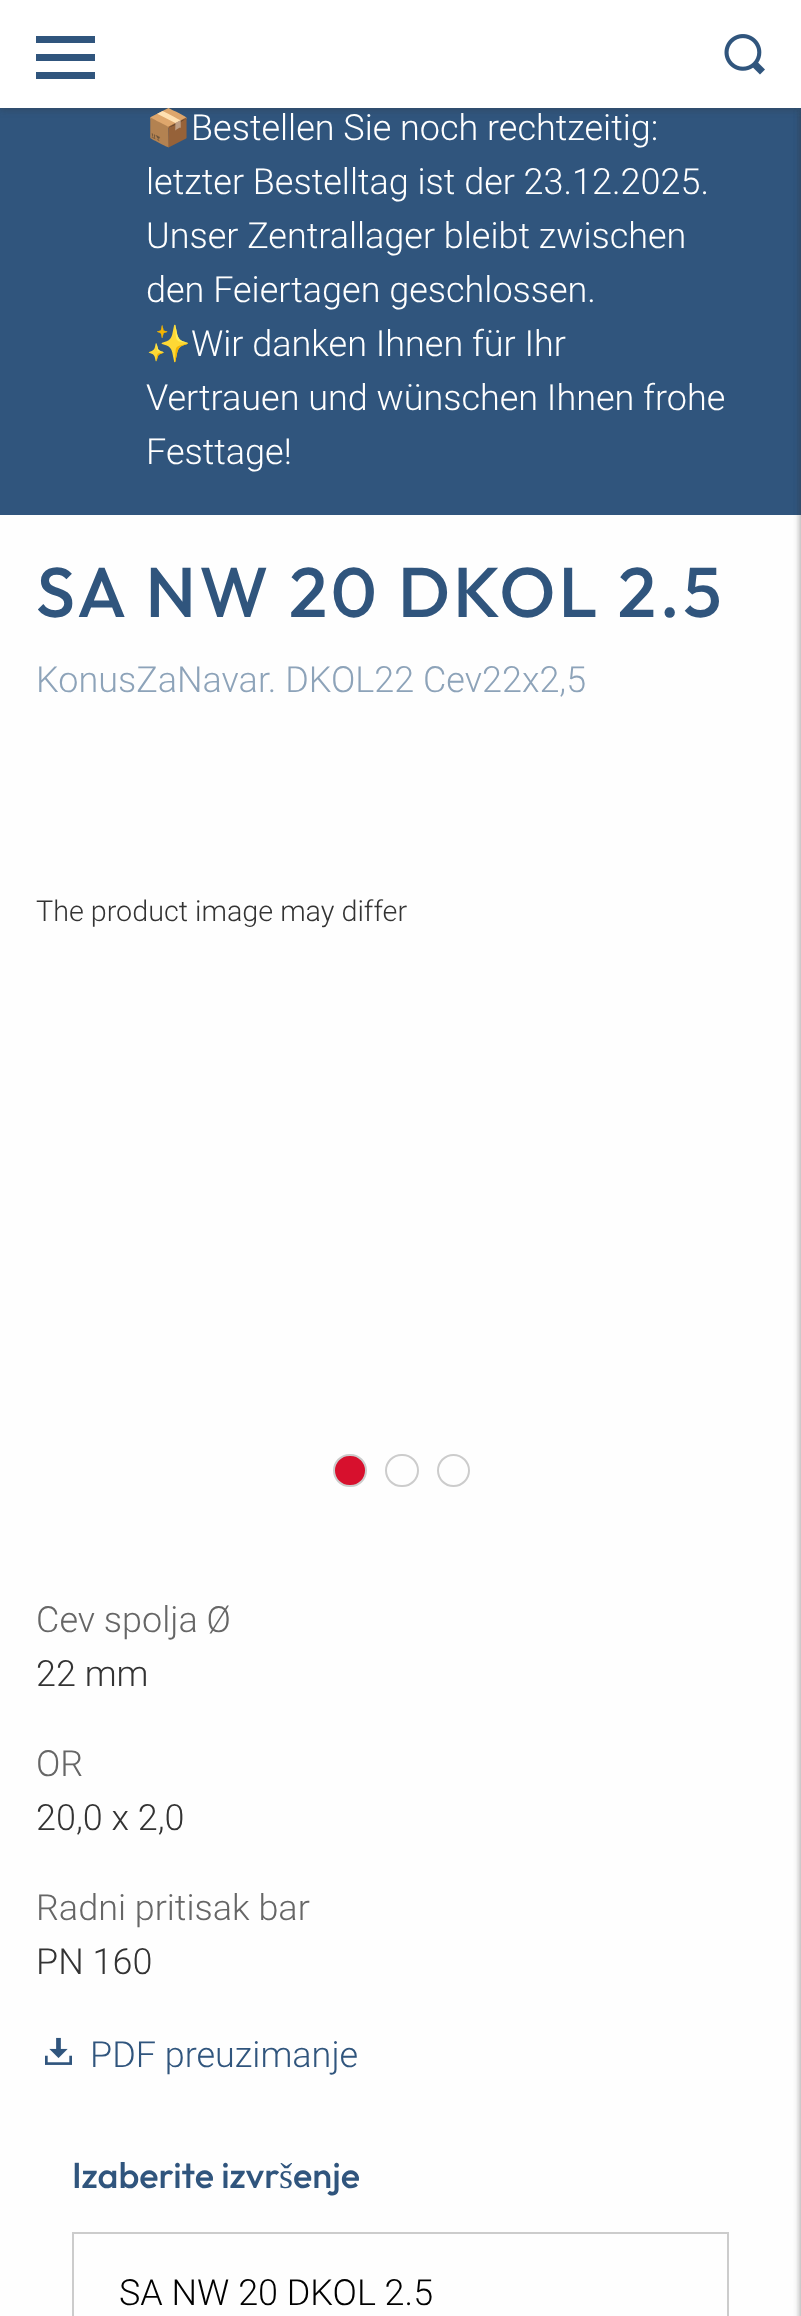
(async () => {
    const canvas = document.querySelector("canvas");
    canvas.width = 801;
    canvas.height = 2316;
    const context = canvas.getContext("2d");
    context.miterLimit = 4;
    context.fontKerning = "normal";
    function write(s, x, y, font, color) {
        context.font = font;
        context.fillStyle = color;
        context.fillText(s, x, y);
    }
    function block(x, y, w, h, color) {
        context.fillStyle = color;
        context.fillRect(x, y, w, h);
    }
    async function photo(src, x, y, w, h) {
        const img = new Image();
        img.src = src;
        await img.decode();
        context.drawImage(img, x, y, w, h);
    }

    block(0, 0, 801, 2316, "rgb(254, 254, 254)");
    block(0, 108, 801, 407, "rgb(48, 85, 125)");
    context.fillStyle = "rgba(51, 51, 51, 0.3)";
    context.filter = "blur(3.5px)";
    context.beginPath();
    context.rect(0, 2, 801, 108);
    context.fill();
    context.filter = "none";
    context.filter = "blur(3.5px)";
    context.beginPath();
    context.rect(801, 110, 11, 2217);
    context.fill();
    context.filter = "none";
    context.filter = "blur(3.5px)";
    context.beginPath();
    context.rect(801, 110, 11, 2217);
    context.fill();
    context.filter = "none";
    block(0, 0, 801, 108, "rgb(255, 255, 255)");
    block(36, 54, 59, 7, "rgb(48, 85, 125)");
    block(36, 36, 59, 7, "rgb(48, 85, 125)");
    block(36, 72, 59, 7, "rgb(48, 85, 125)");
    await photo("media/1.png", 724, 34, 41, 41);
    write("📦", 146, 140, "36px Noto Color Emoji", "rgb(255, 255, 255)");
    write("Bestellen Sie noch rechtzeitig:", 191, 140, "300 36px Roboto", "rgb(255, 255, 255)");
    write("letzter Bestelltag ist der 23.12.2025.", 146, 194, "300 36px Roboto", "rgb(255, 255, 255)");
    write("Unser Zentrallager bleibt zwischen", 146, 248, "300 36px Roboto", "rgb(255, 255, 255)");
    write("den Feiertagen geschlossen.", 146, 302, "300 36px Roboto", "rgb(255, 255, 255)");
    write("✨", 146, 356, "36px Noto Color Emoji", "rgb(255, 255, 255)");
    write("Wir danken Ihnen für Ihr", 191, 356, "300 36px Roboto", "rgb(255, 255, 255)");
    write("Vertrauen und wünschen Ihnen frohe", 146, 410, "300 36px Roboto", "rgb(255, 255, 255)");
    write("Festtage!", 146, 464, "300 36px Roboto", "rgb(255, 255, 255)");
    context.letterSpacing = "3.5px";
    write("SA NW 20 DKOL 2.5", 36, 617, "500 70.25px Outfit", "rgb(48, 85, 125)");
    context.letterSpacing = "0px";
    write("KonusZaNavar. DKOL22 Cev22x2,5", 36, 692, "300 36px Roboto", "rgb(141, 163, 185)");
    write("The product image may differ", 36, 921, "300 28.75px Roboto", "rgb(51, 51, 51)");
    context.fillStyle = "rgb(215, 16, 45)";
    context.beginPath();
    context.roundRect(334, 1455, 32, 31, 15.5);
    context.fill();
    context.strokeStyle = "rgb(204, 204, 204)";
    context.lineWidth = 2;
    context.stroke();
    context.beginPath();
    context.roundRect(386, 1455, 32, 31, 15.5);
    context.stroke();
    context.beginPath();
    context.arc(453.5, 1470.5, 15.5, 0, Math.PI * 2);
    context.stroke();
    write("Cev spolja Ø", 36, 1632, "300 36px Roboto", "rgb(102, 102, 102)");
    write("22 mm", 36, 1686, "300 36px Roboto", "rgb(51, 51, 51)");
    write("OR", 36, 1776, "300 36px Roboto", "rgb(102, 102, 102)");
    write("20,0 x 2,0", 36, 1830, "300 36px Roboto", "rgb(51, 51, 51)");
    write("Radni pritisak bar", 36, 1920, "300 36px Roboto", "rgb(102, 102, 102)");
    write("PN 160", 36, 1974, "300 36px Roboto", "rgb(51, 51, 51)");
    await photo("media/2.png", 45, 2037, 27, 28);
    write("PDF preuzimanje", 90, 2067, "300 36px Roboto", "rgb(48, 85, 125)");
    write("Izaberite izvr", 72, 2188, "500 36px Outfit", "rgb(48, 85, 125)");
    write("š", 279, 2188, "36px Liberation Serif", "rgb(48, 85, 125)");
    write("enje", 293, 2188, "500 36px Outfit", "rgb(48, 85, 125)");
    context.strokeRect(73, 2233, 655, 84);
    write("SA NW 20 DKOL 2.5", 119, 2305, "300 36px Roboto", "rgb(0, 0, 0)");
})();
